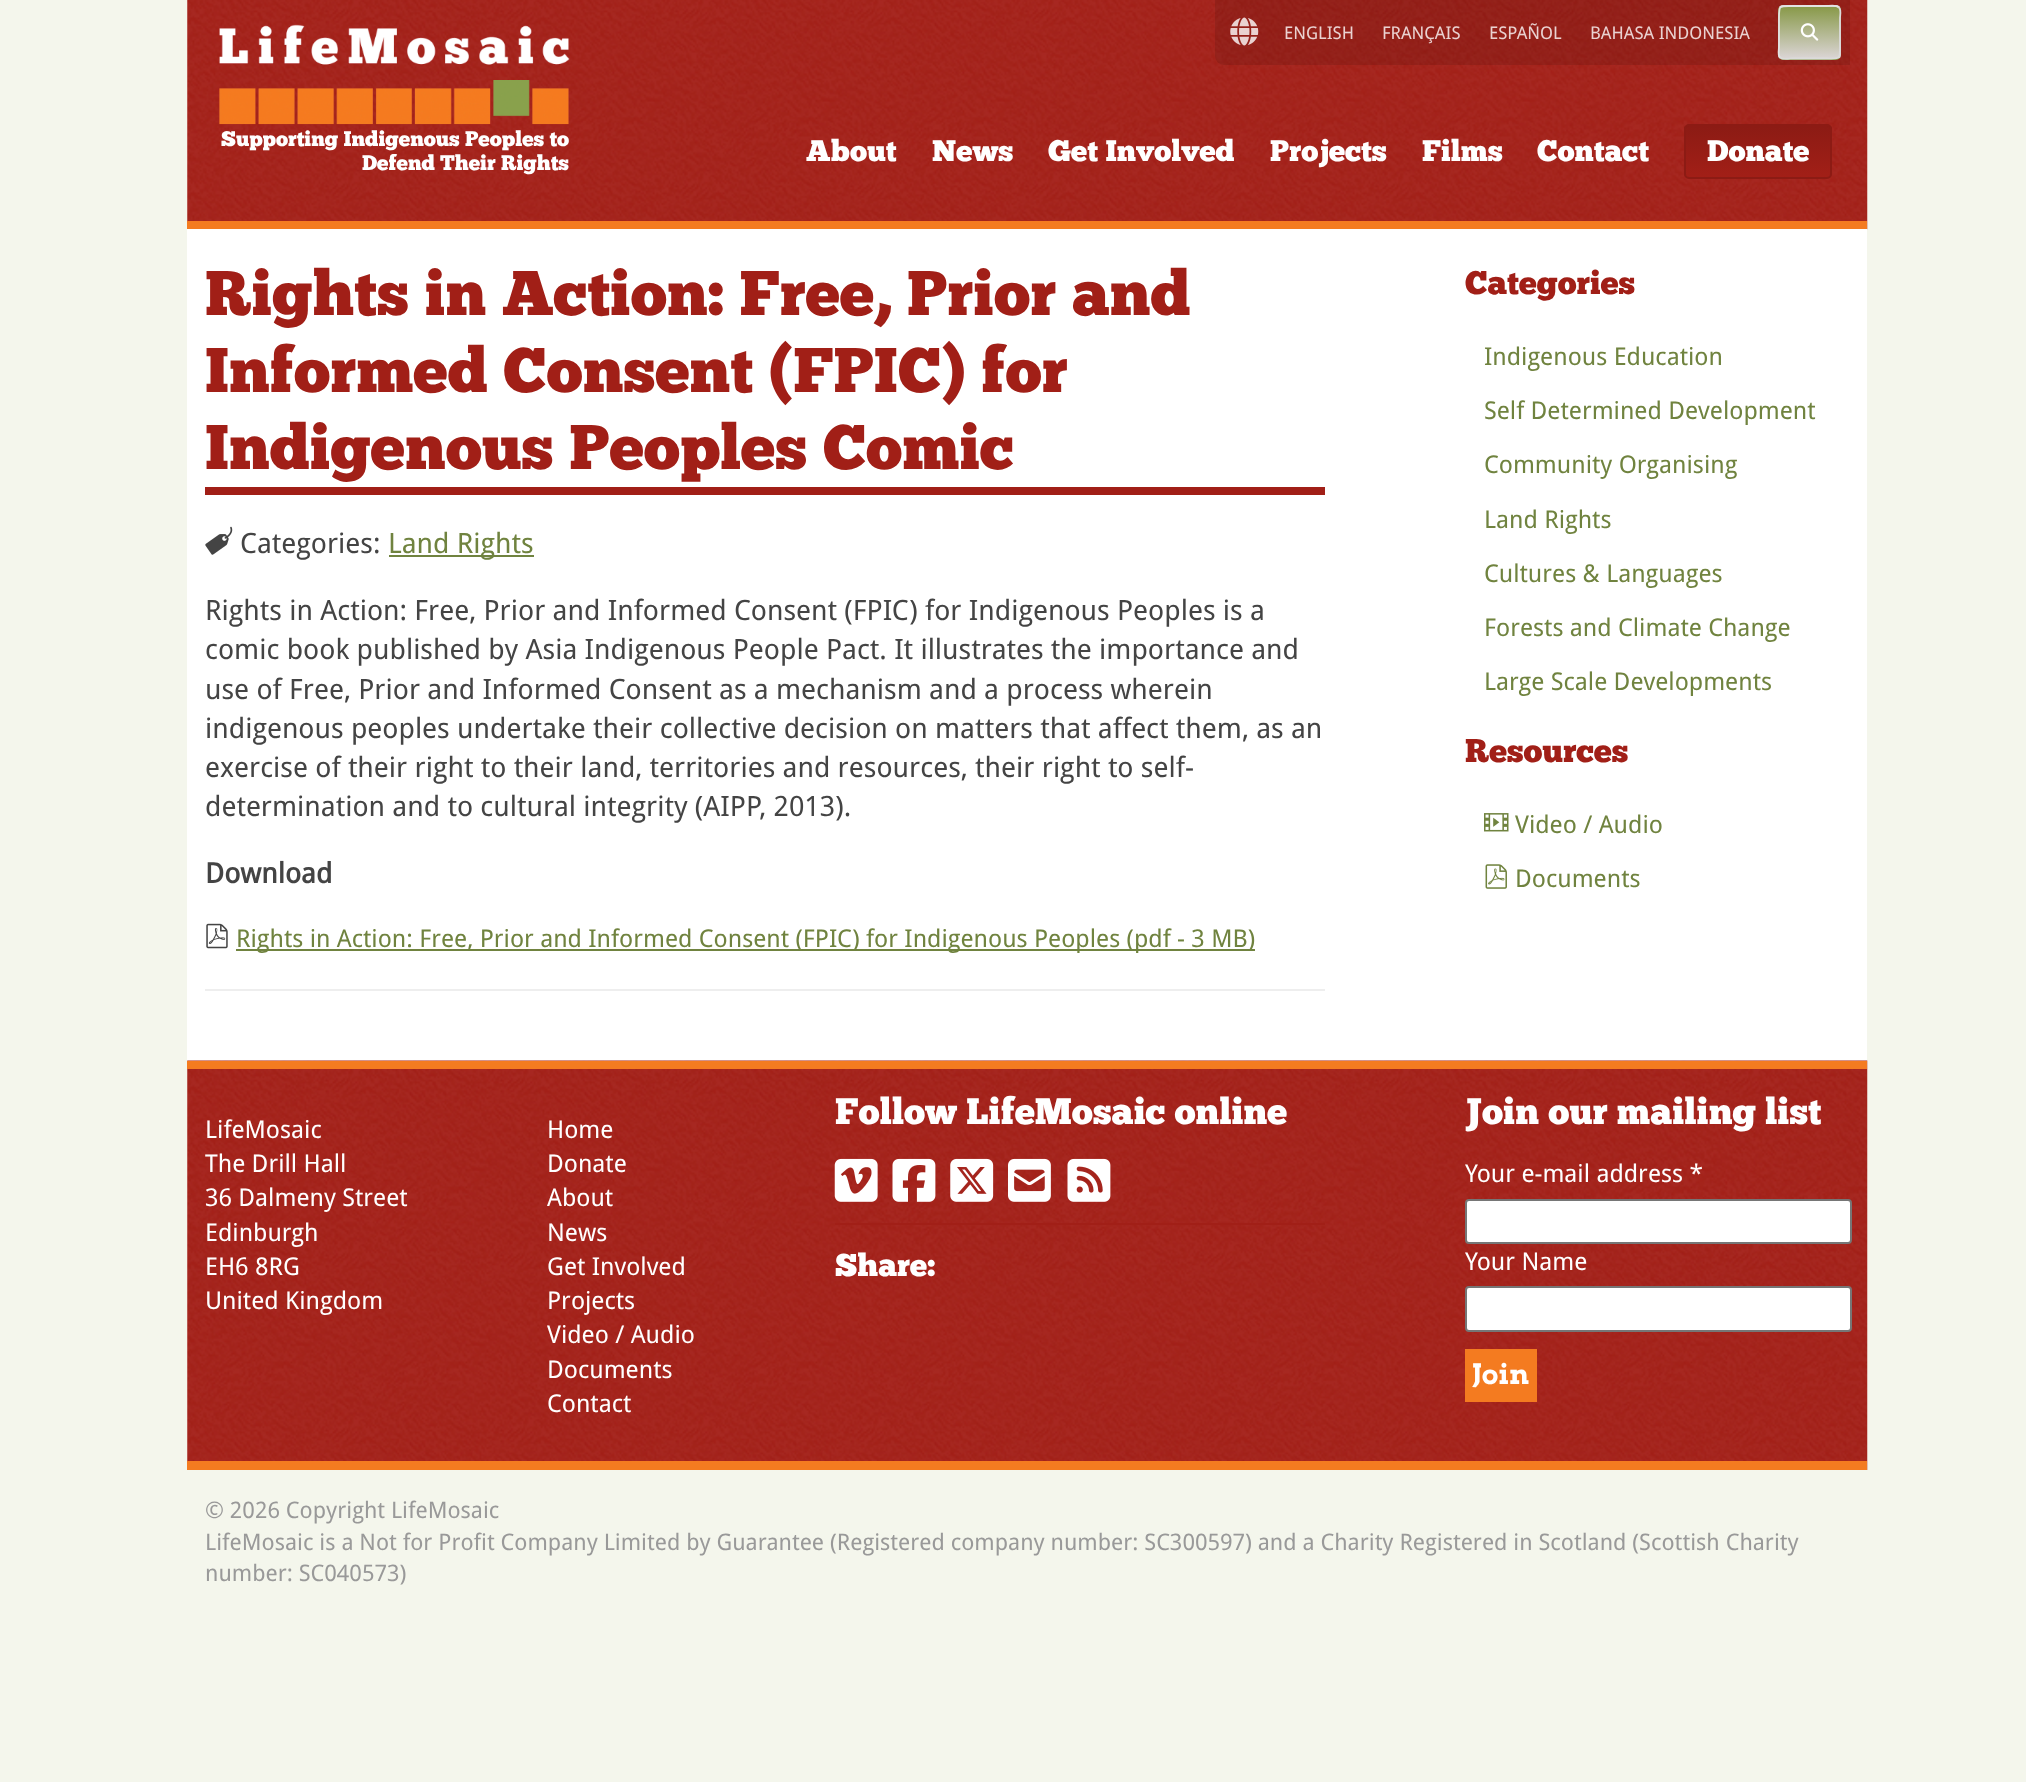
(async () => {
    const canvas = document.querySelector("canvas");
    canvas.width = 2026;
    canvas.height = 1782;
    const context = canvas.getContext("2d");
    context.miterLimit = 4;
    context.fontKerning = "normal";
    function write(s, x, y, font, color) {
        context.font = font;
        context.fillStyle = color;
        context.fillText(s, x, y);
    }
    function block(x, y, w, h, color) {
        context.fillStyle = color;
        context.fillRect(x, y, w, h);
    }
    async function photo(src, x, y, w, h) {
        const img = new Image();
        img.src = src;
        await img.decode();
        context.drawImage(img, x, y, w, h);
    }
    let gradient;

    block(0, 0, 2026, 1782, "rgb(244, 246, 236)");
    await photo("media/1.png", 187, 0, 1681, 230);
    block(187, 221, 1680, 8, "rgb(244, 123, 32)");
    await photo("media/2.png", 219, 24, 351, 101);
    write("Supporting Indigenous Peoples to", 221, 146, "21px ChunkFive", "rgb(255, 255, 255)");
    write("Defend Their Rights", 362, 170, "21px ChunkFive", "rgb(255, 255, 255)");
    context.fillStyle = "rgba(0, 0, 0, 0.1)";
    context.beginPath();
    context.roundRect(1215, 0, 635, 65, [0, 0, 0, 9]);
    context.fill();
    await photo("media/3.png", 1230, 17, 29, 29);
    write("ENGLISH", 1284, 39, "17.5px Droid Sans", "rgb(234, 210, 209)");
    write("FRANÇAIS", 1382, 39, "17.5px Droid Sans", "rgb(234, 210, 209)");
    write("ESPAÑOL", 1489, 39, "17.5px Droid Sans", "rgb(234, 210, 209)");
    write("BAHASA INDONESIA", 1590, 39, "17.5px Droid Sans", "rgb(234, 210, 209)");
    context.save();
    context.beginPath();
    context.roundRect(1778, 5, 63, 55, 5);
    context.clip();
    gradient = context.createLinearGradient(1810, -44, 1810, 7);
    gradient.addColorStop(0, "rgba(136, 160, 76, 0.95)");
    gradient.addColorStop(1, "rgba(222, 222, 222, 0.95)");
    context.fillStyle = gradient;
    context.fillRect(1778, 5, 63, 2);
    gradient = context.createLinearGradient(1810, 7, 1810, 58);
    gradient.addColorStop(0, "rgba(136, 160, 76, 0.95)");
    gradient.addColorStop(1, "rgba(222, 222, 222, 0.95)");
    context.fillStyle = gradient;
    context.fillRect(1778, 7, 63, 51);
    gradient = context.createLinearGradient(1810, 58, 1810, 109);
    gradient.addColorStop(0, "rgba(136, 160, 76, 0.95)");
    gradient.addColorStop(1, "rgba(222, 222, 222, 0.95)");
    context.fillStyle = gradient;
    context.fillRect(1778, 58, 63, 2);
    context.restore();
    context.beginPath();
    context.moveTo(1839, 7.5);
    context.bezierCurveTo(1841.5, 10, 1840, 15.5, 1840, 18);
    context.lineTo(1840, 47);
    context.bezierCurveTo(1840, 60, 1840, 58.5, 1827, 58.5);
    context.lineTo(1792, 58.5);
    context.bezierCurveTo(1790, 58.5, 1783, 60, 1780, 57.5);
    context.strokeStyle = "rgb(219, 219, 219)";
    context.lineWidth = 1.8;
    context.stroke();
    context.beginPath();
    context.moveTo(1780, 57.5);
    context.bezierCurveTo(1777.5, 55, 1779, 49, 1779, 47);
    context.lineTo(1779, 18);
    context.bezierCurveTo(1779, 5, 1779, 6, 1792, 6);
    context.lineTo(1827, 6);
    context.bezierCurveTo(1829, 6, 1836, 4.5, 1839, 7.5);
    context.strokeStyle = "rgb(227, 227, 227)";
    context.stroke();
    await photo("media/4.png", 1800, 23, 19, 18);
    write("About", 806, 161, "29.75px ChunkFive", "rgb(255, 255, 255)");
    write("News", 932, 161, "29.75px ChunkFive", "rgb(255, 255, 255)");
    write("Get Involved", 1048, 161, "29.75px ChunkFive", "rgb(255, 255, 255)");
    write("Projects", 1270, 161, "29.75px ChunkFive", "rgb(255, 255, 255)");
    write("Films", 1422, 161, "29.75px ChunkFive", "rgb(255, 255, 255)");
    write("Contact", 1537, 161, "29.75px ChunkFive", "rgb(255, 255, 255)");
    context.save();
    context.beginPath();
    context.roundRect(1684, 124, 148, 55, 5);
    context.clip();
    gradient = context.createLinearGradient(1758, 126, 1758, 177);
    gradient.addColorStop(0, "rgb(140, 27, 20)");
    gradient.addColorStop(1, "rgb(162, 31, 23)");
    context.fillStyle = gradient;
    context.fillRect(1684, 126, 148, 51);
    context.restore();
    context.beginPath();
    context.roundRect(1685, 125, 146, 53, 4);
    context.strokeStyle = "rgb(140, 27, 20)";
    context.lineWidth = 2;
    context.stroke();
    write("Donate", 1707, 161, "29.75px ChunkFive", "rgb(255, 255, 255)");
    block(187, 229, 1680, 832, "rgb(255, 255, 255)");
    block(205, 487, 1120, 8, "rgb(161, 31, 23)");
    write("Rights in Action: Free, Prior and", 205, 315, "63px ChunkFive", "rgb(161, 31, 23)");
    write("Informed Consent (FPIC) for", 205, 392, "63px ChunkFive", "rgb(161, 31, 23)");
    write("Indigenous Peoples Comic", 205, 469, "63px ChunkFive", "rgb(161, 31, 23)");
    await photo("media/5.png", 205, 526, 28, 29);
    write("Categories:", 240, 553, "28px Droid Sans", "rgb(68, 68, 68)");
    block(389, 555, 145, 2, "rgb(112, 131, 63)");
    write("Land Rights", 388, 553, "28px Droid Sans", "rgb(112, 131, 63)");
    write("Rights in Action: Free, Prior and Informed Consent (FPIC) for Indigenous Peoples is a", 205, 620, "28px Droid Sans", "rgb(68, 68, 68)");
    write("comic book published by Asia Indigenous People Pact. It illustrates the importance and", 205, 659, "28px Droid Sans", "rgb(68, 68, 68)");
    write("use of Free, Prior and Informed Consent as a mechanism and a process wherein", 205, 699, "28px Droid Sans", "rgb(68, 68, 68)");
    write("indigenous peoples undertake their collective decision on matters that affect them, as an", 205, 738, "28px Droid Sans", "rgb(68, 68, 68)");
    write("exercise of their right to their land, territories and resources, their right to self-", 205, 777, "28px Droid Sans", "rgb(68, 68, 68)");
    write("determination and to cultural integrity (AIPP, 2013).", 205, 816, "28px Droid Sans", "rgb(68, 68, 68)");
    write("Download", 205, 883, "bold 28px Droid Sans", "rgb(68, 68, 68)");
    await photo("media/6.png", 206, 923, 22, 26);
    block(236, 949, 1019, 2, "rgb(112, 131, 63)");
    write("Rights in Action: Free, Prior and Informed Consent (FPIC) for Indigenous Peoples (pdf - 3 MB)", 236, 947, "24.5px Droid Sans", "rgb(112, 131, 63)");
    block(205, 989, 1120, 2, "rgb(238, 238, 238)");
    write("Categories", 1465, 294, "32.75px ChunkFive", "rgb(161, 31, 23)");
    write("Indigenous Education", 1484, 365, "24.5px Droid Sans", "rgb(112, 131, 63)");
    write("Self Determined Development", 1484, 419, "24.5px Droid Sans", "rgb(112, 131, 63)");
    write("Community Organising", 1484, 473, "24.5px Droid Sans", "rgb(112, 131, 63)");
    write("Land Rights", 1484, 528, "24.5px Droid Sans", "rgb(112, 131, 63)");
    write("Cultures & Languages", 1484, 582, "24.5px Droid Sans", "rgb(112, 131, 63)");
    write("Forests and Climate Change", 1484, 636, "24.5px Droid Sans", "rgb(112, 131, 63)");
    write("Large Scale Developments", 1484, 690, "24.5px Droid Sans", "rgb(112, 131, 63)");
    write("Resources", 1465, 762, "32.75px ChunkFive", "rgb(161, 31, 23)");
    await photo("media/7.png", 1484, 813, 25, 19);
    write("Video / Audio", 1515, 833, "24.5px Droid Sans", "rgb(112, 131, 63)");
    await photo("media/8.png", 1485, 864, 22, 25);
    write("Documents", 1515, 887, "24.5px Droid Sans", "rgb(112, 131, 63)");
    await photo("media/9.png", 187, 1060, 1681, 410);
    block(187, 1061, 1680, 8, "rgb(244, 123, 32)");
    block(187, 1461, 1680, 9, "rgb(244, 123, 32)");
    write("LifeMosaic", 205, 1138, "24.5px Droid Sans", "rgb(255, 255, 255)");
    write("The Drill Hall", 205, 1172, "24.5px Droid Sans", "rgb(255, 255, 255)");
    write("36 Dalmeny Street", 205, 1206, "24.5px Droid Sans", "rgb(255, 255, 255)");
    write("Edinburgh", 205, 1241, "24.5px Droid Sans", "rgb(255, 255, 255)");
    write("EH6 8RG", 205, 1275, "24.5px Droid Sans", "rgb(255, 255, 255)");
    write("United Kingdom", 205, 1309, "24.5px Droid Sans", "rgb(255, 255, 255)");
    write("Home", 547, 1138, "24.5px Droid Sans", "rgb(255, 255, 255)");
    write("Donate", 547, 1172, "24.5px Droid Sans", "rgb(255, 255, 255)");
    write("About", 547, 1206, "24.5px Droid Sans", "rgb(255, 255, 255)");
    write("News", 547, 1241, "24.5px Droid Sans", "rgb(255, 255, 255)");
    write("Get Involved", 547, 1275, "24.5px Droid Sans", "rgb(255, 255, 255)");
    write("Projects", 547, 1309, "24.5px Droid Sans", "rgb(255, 255, 255)");
    write("Video / Audio", 547, 1343, "24.5px Droid Sans", "rgb(255, 255, 255)");
    write("Documents", 547, 1378, "24.5px Droid Sans", "rgb(255, 255, 255)");
    write("Contact", 547, 1412, "24.5px Droid Sans", "rgb(255, 255, 255)");
    write("Follow LifeMosaic online", 835, 1124, "36.75px ChunkFive", "rgb(255, 255, 255)");
    await photo("media/10.png", 834, 1158, 44, 44);
    await photo("media/11.png", 892, 1158, 44, 44);
    await photo("media/12.png", 950, 1158, 44, 44);
    await photo("media/13.png", 1008, 1158, 43, 44);
    await photo("media/14.png", 1067, 1158, 44, 44);
    block(835, 1223, 490, 2, "rgb(161, 31, 23)");
    write("Share:", 835, 1276, "31.5px ChunkFive", "rgb(255, 255, 255)");
    write("Join our mailing list", 1465, 1124, "36.75px ChunkFive", "rgb(255, 255, 255)");
    write("Your e-mail address *", 1465, 1182, "24.5px Droid Sans", "rgb(255, 255, 255)");
    context.beginPath();
    context.roundRect(1466, 1200, 385, 43, 3);
    context.fill();
    context.strokeStyle = "rgb(118, 118, 118)";
    context.stroke();
    write("Your Name", 1465, 1270, "24.5px Droid Sans", "rgb(255, 255, 255)");
    context.beginPath();
    context.roundRect(1466, 1287, 385, 44, 3);
    context.fill();
    context.stroke();
    block(1465, 1349, 72, 53, "rgb(244, 123, 32)");
    write("Join", 1472, 1384, "bold 28px Arvo", "rgb(255, 255, 255)");
    write("© 2026 Copyright LifeMosaic", 205, 1518, "22.75px Droid Sans", "rgb(153, 153, 153)");
    write("LifeMosaic is a Not for Profit Company Limited by Guarantee (Registered company number: SC300597) and a Charity Registered in Scotland (Scottish Charity", 205, 1550, "22.75px Droid Sans", "rgb(153, 153, 153)");
    write("number: SC040573)", 205, 1581, "22.75px Droid Sans", "rgb(153, 153, 153)");
})();
